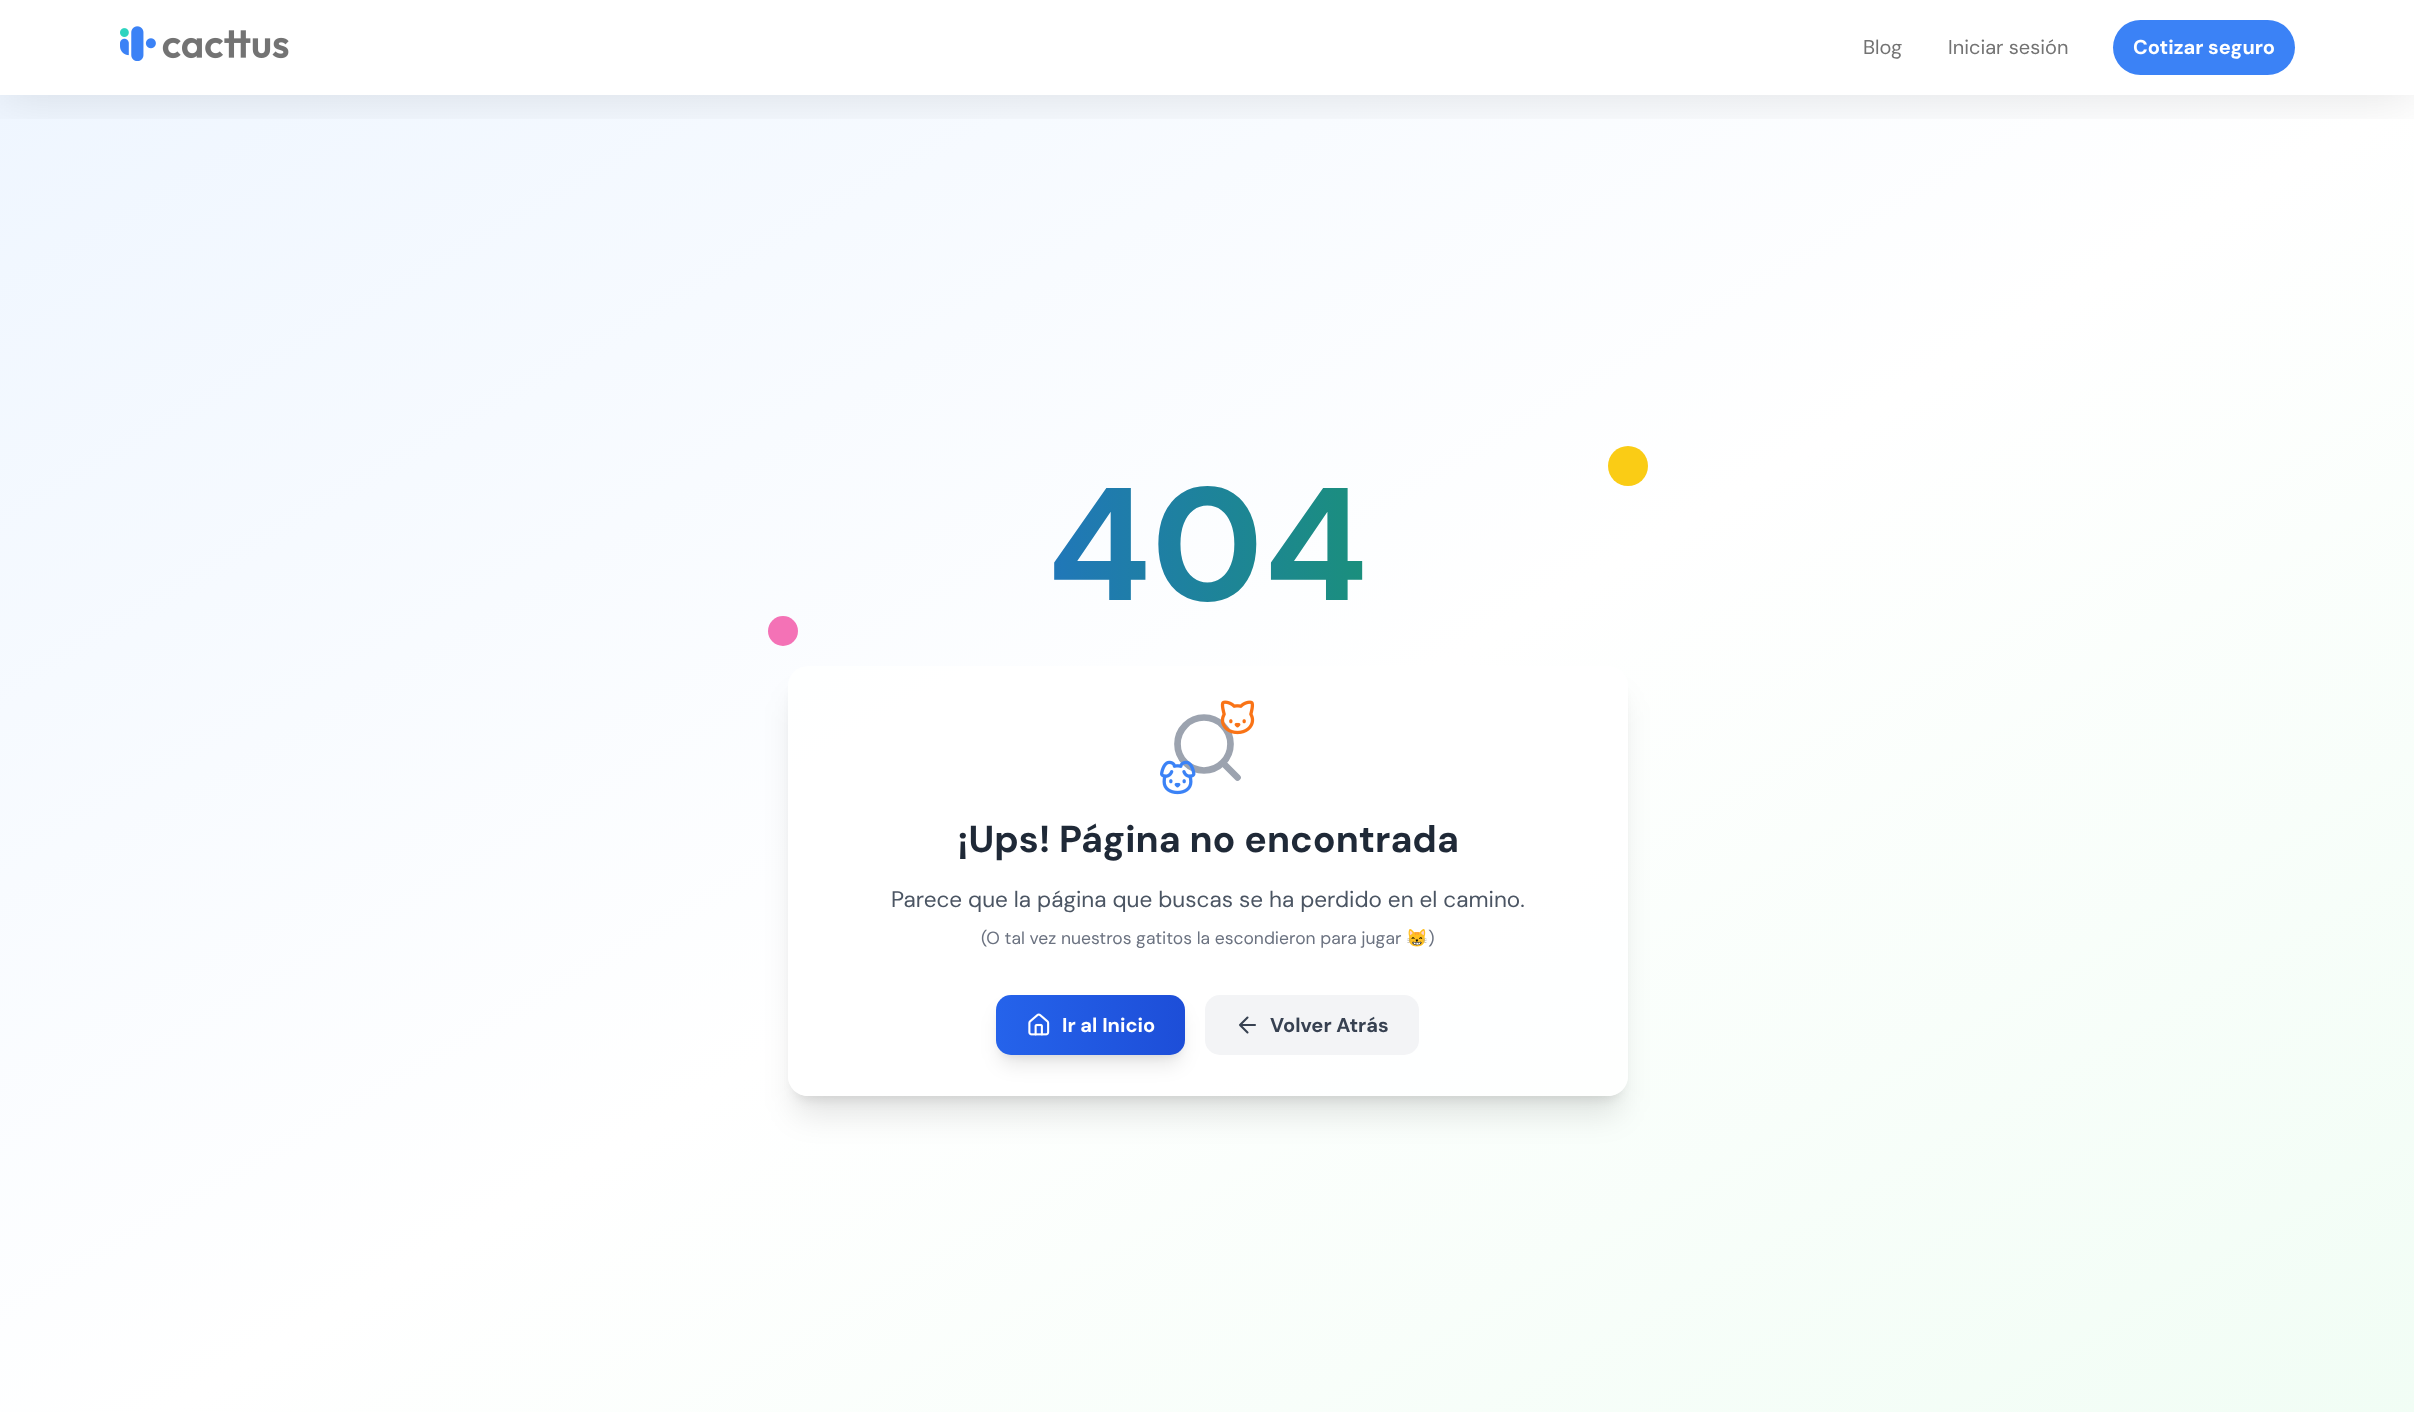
(async () => {
    const canvas = document.querySelector("canvas");
    canvas.width = 2414;
    canvas.height = 1412;
    const context = canvas.getContext("2d");
    context.miterLimit = 4;
    context.fontKerning = "normal";
    function write(s, x, y, font, color) {
        context.font = font;
        context.fillStyle = color;
        context.fillText(s, x, y);
    }
    function block(x, y, w, h, color) {
        context.fillStyle = color;
        context.fillRect(x, y, w, h);
    }
    function card(x, y, w, h, r, color) {
        context.fillStyle = color;
        context.beginPath();
        context.roundRect(x, y, w, h, r);
        context.fill();
    }
    async function photo(src, x, y, w, h) {
        const img = new Image();
        img.src = src;
        await img.decode();
        context.drawImage(img, x, y, w, h);
    }
    let gradient;

    block(0, 0, 2414, 1412, "rgb(255, 255, 255)");
    gradient = context.createLinearGradient(592, -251, 1823, 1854);
    gradient.addColorStop(0, "rgb(239, 246, 255)");
    gradient.addColorStop(0.5, "rgb(255, 255, 255)");
    gradient.addColorStop(1, "rgb(240, 253, 244)");
    context.fillStyle = gradient;
    context.fillRect(0, 95, 2414, 1317);
    context.save();
    context.beginPath();
    context.rect(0, 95, 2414, 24);
    context.clip();
    context.fillStyle = "rgba(0, 0, 0, 0.1)";
    context.filter = "blur(25px)";
    context.beginPath();
    context.rect(0, 3, 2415, 95);
    context.fill();
    context.filter = "none";
    context.restore();
    await photo("media/1.png", 120, 26, 169, 35);
    write("Blog", 1863, 54, "20px DM Sans", "rgb(115, 115, 115)");
    write("Iniciar sesión", 1948, 54, "20px DM Sans", "rgb(115, 115, 115)");
    card(2113, 20, 182, 55, 27.5, "rgb(59, 130, 246)");
    write("Cotizar seguro", 2133, 54, "bold 20px DM Sans", "rgb(255, 255, 255)");
    context.fillStyle = "rgb(250, 204, 21)";
    context.beginPath();
    context.arc(1628, 466, 20, 0, Math.PI * 2);
    context.fill();
    context.font = "bold 160px DM Sans";
    gradient = context.createLinearGradient(788, 546, 1628, 546);
    gradient.addColorStop(0, "rgb(37, 99, 235)");
    gradient.addColorStop(1, "rgb(22, 163, 74)");
    context.fillStyle = gradient;
    context.fillText("404", 1047, 600);
    context.fillStyle = "rgb(244, 114, 182)";
    context.beginPath();
    context.arc(783, 631, 15, 0, Math.PI * 2);
    context.fill();
    context.save();
    context.beginPath();
    context.moveTo(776, 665);
    context.lineTo(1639, 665);
    context.lineTo(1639, 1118);
    context.lineTo(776, 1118);
    context.closePath();
    context.moveTo(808, 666);
    context.lineTo(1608, 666);
    context.bezierCurveTo(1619, 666, 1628, 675, 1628, 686);
    context.lineTo(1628, 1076);
    context.bezierCurveTo(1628, 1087, 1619, 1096, 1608, 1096);
    context.lineTo(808, 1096);
    context.bezierCurveTo(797, 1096, 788, 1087, 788, 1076);
    context.lineTo(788, 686);
    context.bezierCurveTo(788, 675, 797, 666, 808, 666);
    context.closePath();
    context.clip("evenodd");
    context.fillStyle = "rgba(0, 0, 0, 0.1)";
    context.filter = "blur(6px)";
    context.beginPath();
    context.roundRect(795, 684, 825, 415, 13);
    context.fill();
    context.filter = "none";
    context.restore();
    context.save();
    context.beginPath();
    context.moveTo(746, 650);
    context.lineTo(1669, 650);
    context.lineTo(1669, 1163);
    context.lineTo(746, 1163);
    context.closePath();
    context.moveTo(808, 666);
    context.lineTo(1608, 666);
    context.bezierCurveTo(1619, 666, 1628, 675, 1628, 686);
    context.lineTo(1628, 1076);
    context.bezierCurveTo(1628, 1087, 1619, 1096, 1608, 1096);
    context.lineTo(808, 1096);
    context.bezierCurveTo(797, 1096, 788, 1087, 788, 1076);
    context.lineTo(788, 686);
    context.bezierCurveTo(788, 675, 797, 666, 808, 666);
    context.closePath();
    context.clip("evenodd");
    context.fillStyle = "rgba(0, 0, 0, 0.1)";
    context.filter = "blur(15.5px)";
    context.beginPath();
    context.roundRect(794, 698, 827, 417, 14);
    context.fill();
    context.filter = "none";
    context.restore();
    card(788, 666, 840, 430, 20, "rgba(255, 255, 255, 0.8)");
    context.beginPath();
    context.arc(1204, 744, 26.5, 0, Math.PI * 2);
    context.strokeStyle = "rgb(156, 163, 175)";
    context.lineWidth = 6.7;
    context.stroke();
    await photo("media/2.png", 1220, 700, 35, 35);
    context.beginPath();
    context.moveTo(1237.5, 777.5);
    context.lineTo(1223, 763);
    context.lineCap = "round";
    context.lineJoin = "round";
    context.stroke();
    await photo("media/3.png", 1160, 760, 36, 35);
    write("¡Ups! Página no encontrada", 957, 852, "bold 37.5px DM Sans", "rgb(31, 41, 55)");
    write("Parece que la página que buscas se ha perdido en el camino.", 891, 907, "22.5px DM Sans", "rgb(75, 85, 99)");
    write("(O tal vez nuestros gatitos la escondieron para jugar", 981, 944, "17.5px DM Sans", "rgb(107, 114, 128)");
    write("😸", 1406, 944, "17.5px Noto Color Emoji", "rgb(107, 114, 128)");
    write(")", 1428, 944, "17.5px DM Sans", "rgb(107, 114, 128)");
    context.fillStyle = "rgba(0, 0, 0, 0.1)";
    context.filter = "blur(4px)";
    context.beginPath();
    context.roundRect(1001, 1005, 179, 50, 10);
    context.fill();
    context.filter = "none";
    context.filter = "blur(9.5px)";
    context.beginPath();
    context.roundRect(1000, 1011, 181, 53, 11);
    context.fill();
    context.filter = "none";
    gradient = context.createLinearGradient(996, 1025, 1185, 1025);
    gradient.addColorStop(0, "rgb(37, 99, 235)");
    gradient.addColorStop(1, "rgb(29, 78, 216)");
    context.fillStyle = gradient;
    context.beginPath();
    context.roundRect(996, 995, 189, 60, 15);
    context.fill();
    await photo("media/4.png", 1028, 1013, 22, 23);
    write("Ir al Inicio", 1062, 1032, "bold 20px DM Sans", "rgb(255, 255, 255)");
    card(1205, 995, 214, 60, 15, "rgb(243, 244, 246)");
    context.beginPath();
    context.moveTo(1247.5, 1032.5);
    context.lineTo(1240, 1025);
    context.lineTo(1247.5, 1017.5);
    context.moveTo(1255, 1025);
    context.lineTo(1240, 1025);
    context.strokeStyle = "rgb(55, 65, 81)";
    context.lineWidth = 2.1;
    context.stroke();
    write("Volver Atrás", 1270, 1032, "bold 20px DM Sans", "rgb(55, 65, 81)");
})();
